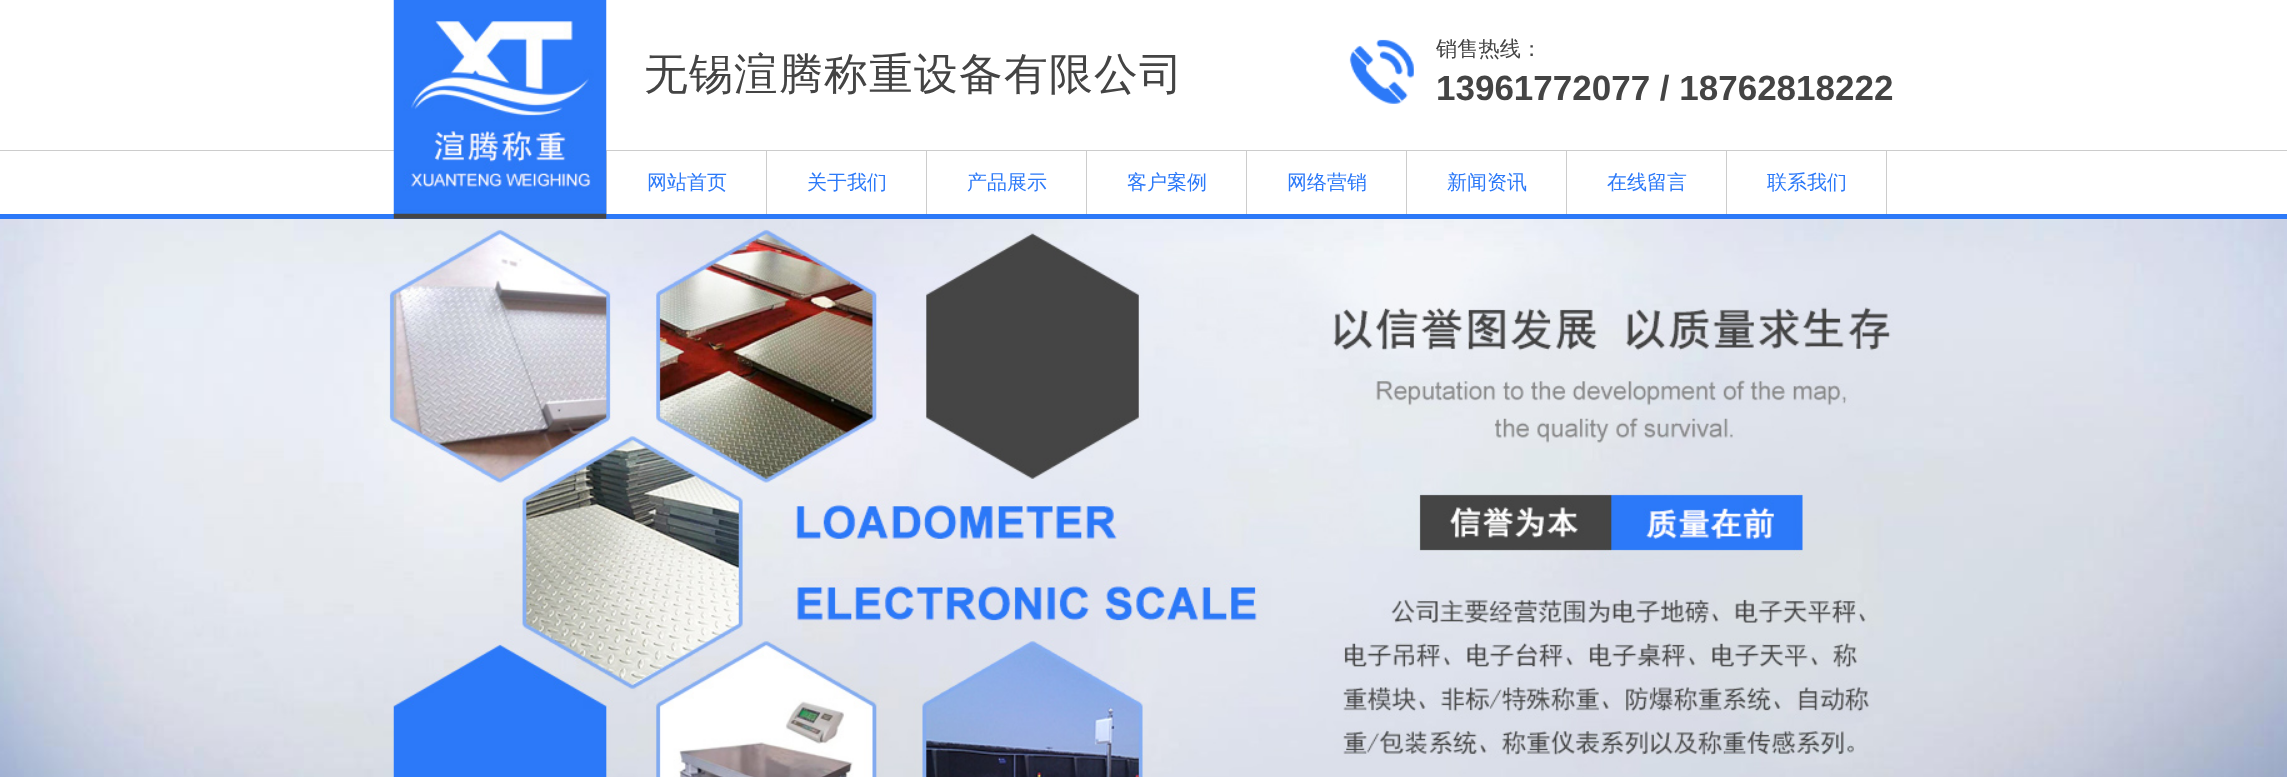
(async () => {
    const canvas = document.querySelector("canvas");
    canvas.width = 2287;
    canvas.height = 777;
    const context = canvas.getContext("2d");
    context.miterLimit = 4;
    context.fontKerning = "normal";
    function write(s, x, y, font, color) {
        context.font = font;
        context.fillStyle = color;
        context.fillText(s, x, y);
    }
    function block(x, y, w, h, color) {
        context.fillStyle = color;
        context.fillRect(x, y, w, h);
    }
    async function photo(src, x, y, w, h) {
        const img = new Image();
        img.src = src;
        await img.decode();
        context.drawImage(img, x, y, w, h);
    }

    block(0, 0, 2287, 777, "rgb(255, 255, 255)");
    block(0, 150, 2287, 1, "rgb(204, 204, 204)");
    block(0, 214, 2287, 5, "rgb(44, 121, 248)");
    block(606, 151, 1, 63, "rgb(204, 204, 204)");
    await photo("media/1.png", 393, 0, 214, 219);
    context.letterSpacing = "1.25px";
    write("无锡渲腾称重设备有限公司", 644, 89, "500 43.75px WenQuanYi Zen Hei", "rgb(68, 68, 68)");
    await photo("media/2.png", 1349, 39, 65, 65);
    context.letterSpacing = "0px";
    write("销售热线：", 1436, 56, "500 21.25px WenQuanYi Zen Hei", "rgb(68, 68, 68)");
    write("13961772077 / 18762818222", 1436, 100, "bold 35px Liberation Sans", "rgb(68, 68, 68)");
    block(766, 151, 1, 63, "rgb(204, 204, 204)");
    write("网站首页", 647, 189, "500 20px WenQuanYi Zen Hei", "rgb(44, 121, 248)");
    block(926, 151, 1, 63, "rgb(204, 204, 204)");
    write("关于我们", 807, 189, "500 20px WenQuanYi Zen Hei", "rgb(44, 121, 248)");
    block(1086, 151, 1, 63, "rgb(204, 204, 204)");
    write("产品展示", 967, 189, "500 20px WenQuanYi Zen Hei", "rgb(44, 121, 248)");
    block(1246, 151, 1, 63, "rgb(204, 204, 204)");
    write("客户案例", 1127, 189, "500 20px WenQuanYi Zen Hei", "rgb(44, 121, 248)");
    block(1406, 151, 1, 63, "rgb(204, 204, 204)");
    write("网络营销", 1287, 189, "500 20px WenQuanYi Zen Hei", "rgb(44, 121, 248)");
    block(1566, 151, 1, 63, "rgb(204, 204, 204)");
    write("新闻资讯", 1447, 189, "500 20px WenQuanYi Zen Hei", "rgb(44, 121, 248)");
    block(1726, 151, 1, 63, "rgb(204, 204, 204)");
    write("在线留言", 1607, 189, "500 20px WenQuanYi Zen Hei", "rgb(44, 121, 248)");
    block(1886, 151, 1, 63, "rgb(204, 204, 204)");
    write("联系我们", 1767, 189, "500 20px WenQuanYi Zen Hei", "rgb(44, 121, 248)");
    await photo("media/3.png", 0, 219, 2287, 558);
})();
